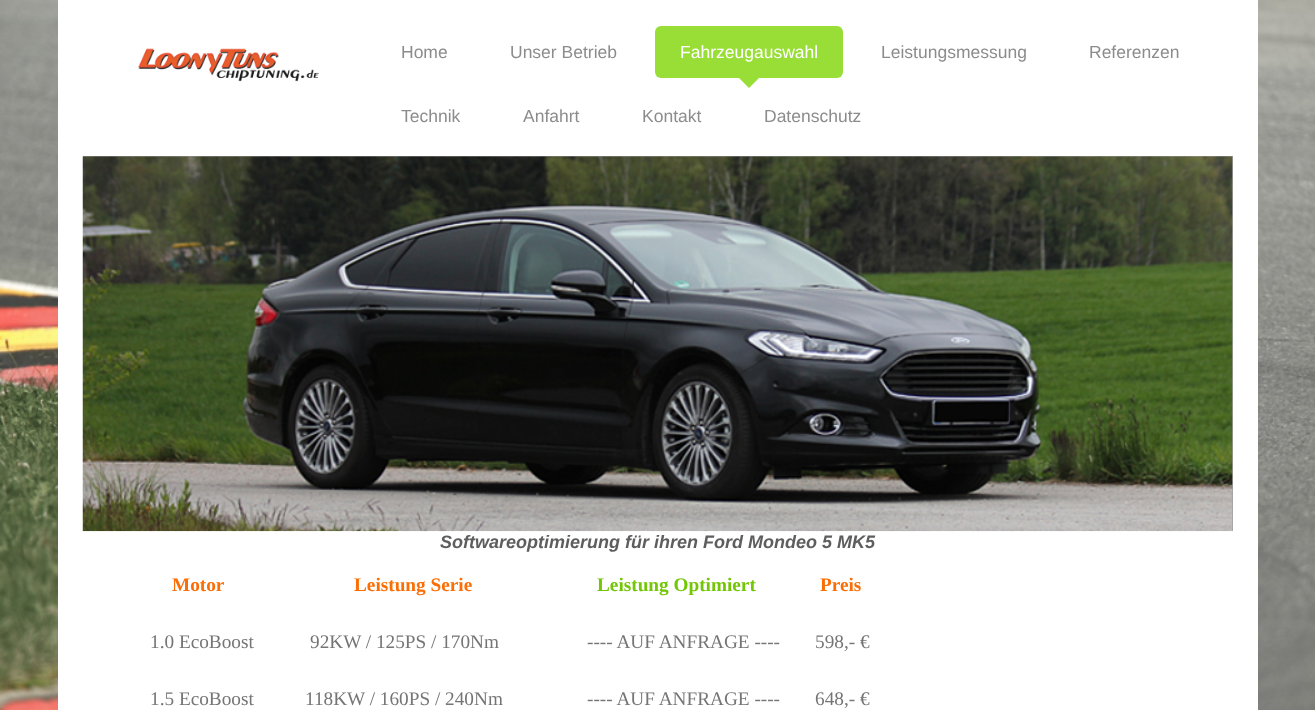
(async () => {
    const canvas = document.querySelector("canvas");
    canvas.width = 1315;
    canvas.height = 710;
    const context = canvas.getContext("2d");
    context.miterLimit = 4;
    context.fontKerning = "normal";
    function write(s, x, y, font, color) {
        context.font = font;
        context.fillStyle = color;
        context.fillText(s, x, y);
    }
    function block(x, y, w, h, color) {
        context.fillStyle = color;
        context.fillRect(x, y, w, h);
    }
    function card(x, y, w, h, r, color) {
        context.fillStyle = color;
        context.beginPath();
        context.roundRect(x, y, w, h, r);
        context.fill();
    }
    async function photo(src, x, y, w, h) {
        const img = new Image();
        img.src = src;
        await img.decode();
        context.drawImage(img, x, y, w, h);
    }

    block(0, 0, 1315, 710, "rgb(255, 255, 255)");
    await photo("media/1.png", 0, 0, 1315, 710);
    block(58, 0, 1200, 710, "rgb(255, 255, 255)");
    await photo("media/2.png", 138, 48, 181, 34);
    write("Home", 401, 58, "17.5px Liberation Sans", "rgb(140, 140, 140)");
    write("Unser Betrieb", 510, 58, "17.5px Liberation Sans", "rgb(140, 140, 140)");
    card(655, 26, 188, 52, 6, "rgb(153, 222, 55)");
    write("Fahrzeugauswahl", 680, 58, "17.5px Liberation Sans", "rgb(255, 255, 255)");
    context.fillStyle = "rgb(153, 222, 55)";
    context.beginPath();
    context.moveTo(736.5, 75.5);
    context.lineTo(761.5, 75.5);
    context.lineTo(749, 88);
    context.closePath();
    context.fill();
    write("Leistungsmessung", 881, 58, "17.5px Liberation Sans", "rgb(140, 140, 140)");
    write("Referenzen", 1089, 58, "17.5px Liberation Sans", "rgb(140, 140, 140)");
    write("Technik", 401, 122, "17.5px Liberation Sans", "rgb(140, 140, 140)");
    write("Anfahrt", 523, 122, "17.5px Liberation Sans", "rgb(140, 140, 140)");
    write("Kontakt", 642, 122, "17.5px Liberation Sans", "rgb(140, 140, 140)");
    write("Datenschutz", 764, 122, "17.5px Liberation Sans", "rgb(140, 140, 140)");
    block(83, 156, 1150, 375, "rgb(160, 160, 160)");
    await photo("media/3.png", 82, 156, 1151, 376);
    write("Softwareoptimierung für ihren Ford Mondeo 5 MK5", 440, 548, "italic bold 18px Liberation Sans", "rgb(94, 94, 94)");
    write("Motor", 172, 591, "bold 19.25px Liberation Serif", "rgb(251, 110, 5)");
    write("Leistung Serie", 354, 591, "bold 19.25px Liberation Serif", "rgb(251, 110, 5)");
    write("Leistung Optimiert", 597, 591, "bold 19.25px Liberation Serif", "rgb(115, 198, 6)");
    write("Preis", 820, 591, "bold 19.25px Liberation Serif", "rgb(251, 110, 5)");
    write("1.0 EcoBoost", 150, 648, "19.25px Liberation Serif", "rgb(117, 117, 117)");
    write("92KW / 125PS / 170Nm", 310, 648, "19.25px Liberation Serif", "rgb(117, 117, 117)");
    write("---- AUF ANFRAGE ----", 587, 648, "19.25px Liberation Serif", "rgb(117, 117, 117)");
    write("598,- €", 815, 648, "19.25px Liberation Serif", "rgb(117, 117, 117)");
    write("1.5 EcoBoost", 150, 705, "19.25px Liberation Serif", "rgb(117, 117, 117)");
    write("118KW / 160PS / 240Nm", 305, 705, "19.25px Liberation Serif", "rgb(117, 117, 117)");
    write("---- AUF ANFRAGE ----", 587, 705, "19.25px Liberation Serif", "rgb(117, 117, 117)");
    write("648,- €", 815, 705, "19.25px Liberation Serif", "rgb(117, 117, 117)");
})();
